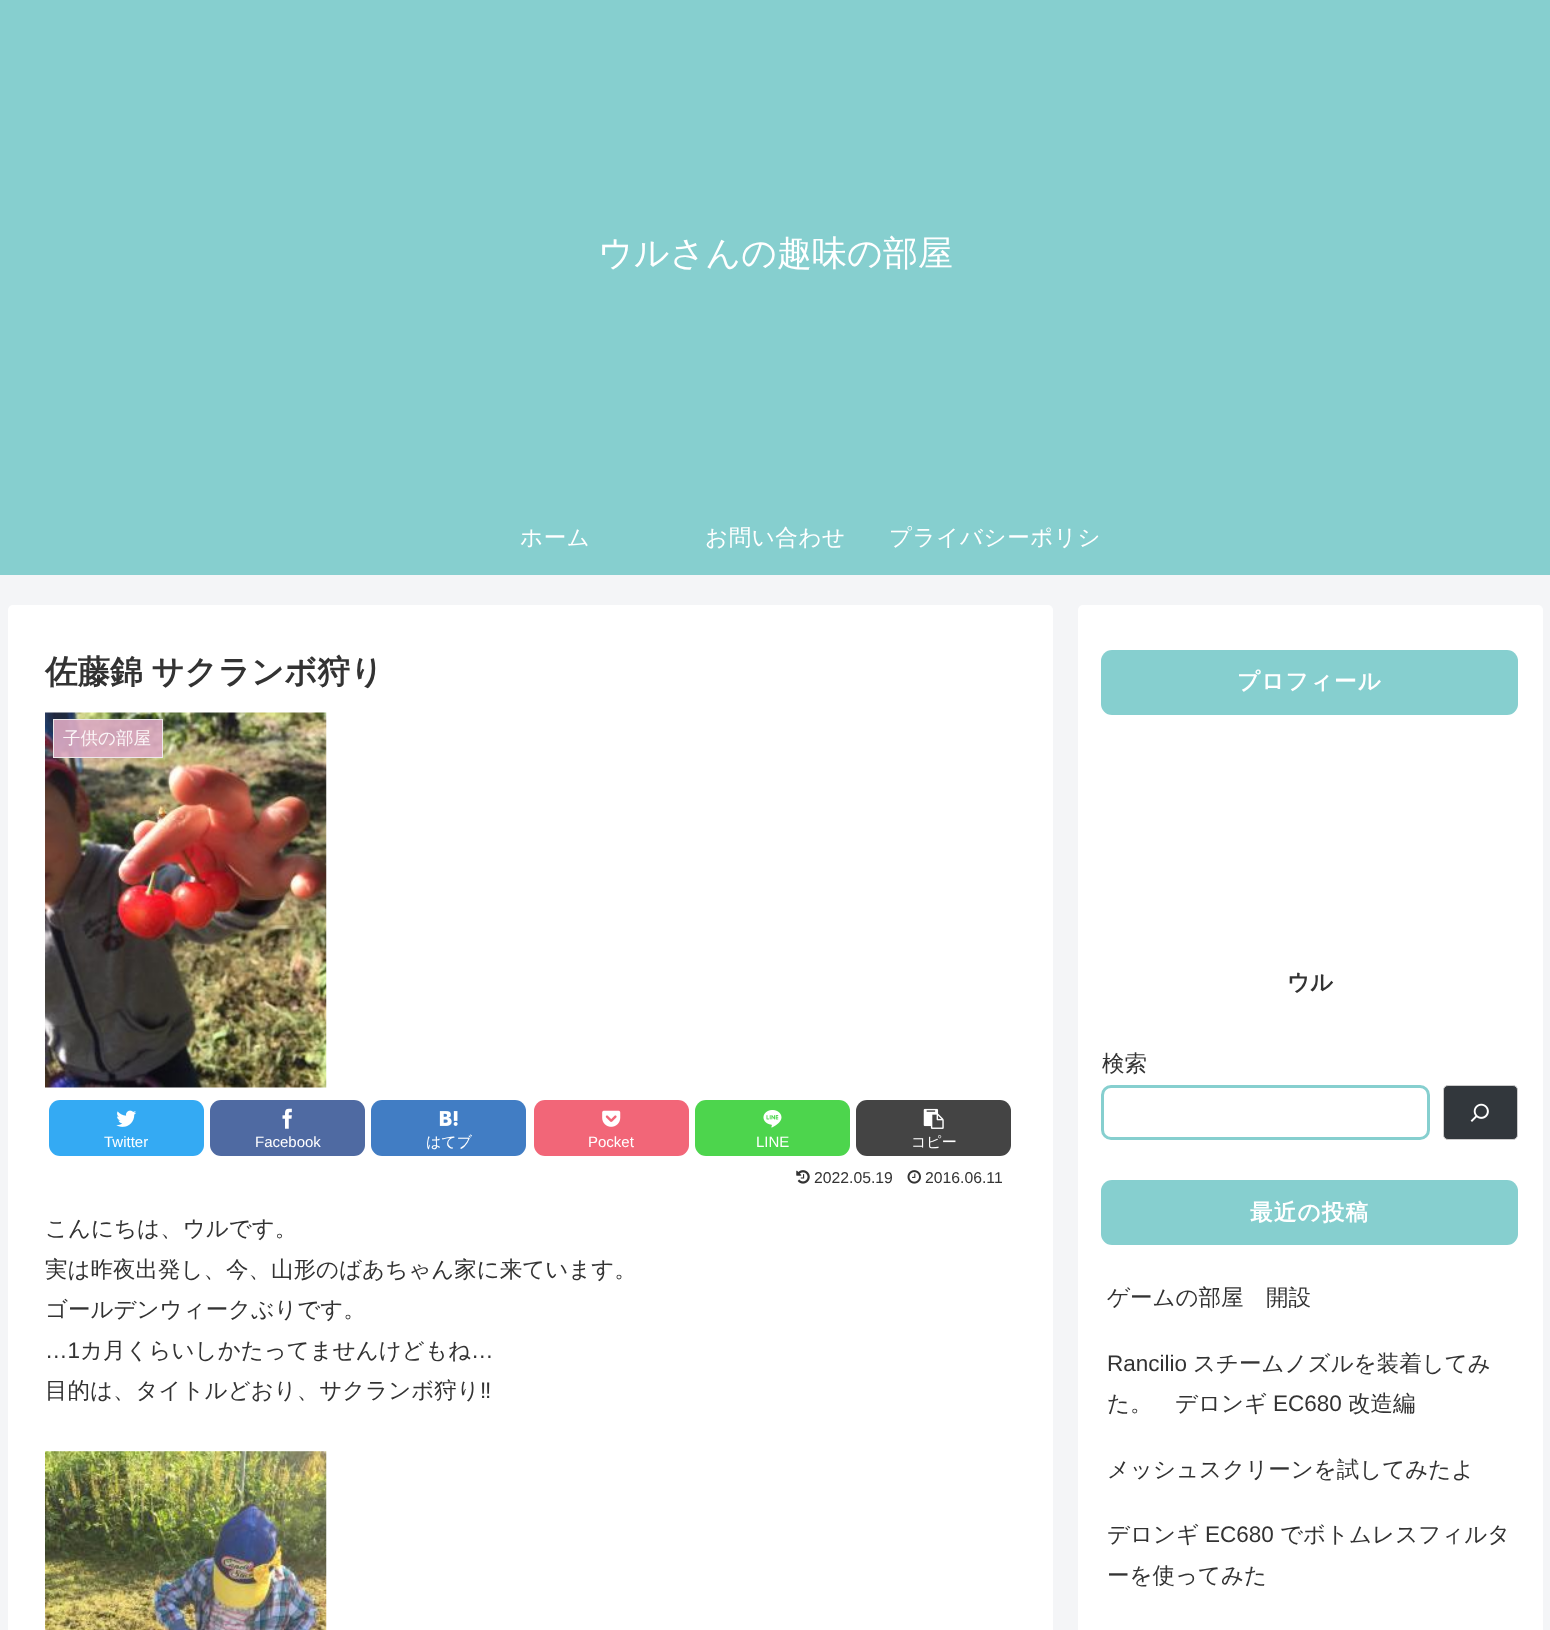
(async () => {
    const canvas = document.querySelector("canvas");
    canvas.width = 1550;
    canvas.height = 1630;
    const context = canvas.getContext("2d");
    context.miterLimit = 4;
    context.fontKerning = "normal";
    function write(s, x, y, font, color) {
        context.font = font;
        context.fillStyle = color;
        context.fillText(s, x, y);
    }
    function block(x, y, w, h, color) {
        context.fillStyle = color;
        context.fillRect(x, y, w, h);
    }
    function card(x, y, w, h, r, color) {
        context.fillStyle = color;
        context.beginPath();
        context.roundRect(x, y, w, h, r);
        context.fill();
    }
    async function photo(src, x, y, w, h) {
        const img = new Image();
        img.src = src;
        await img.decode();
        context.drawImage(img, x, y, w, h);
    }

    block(0, 0, 1550, 1630, "rgb(244, 245, 247)");
    block(0, 0, 1550, 575, "rgb(134, 207, 207)");
    write("ウルさんの趣味の部屋", 598, 265, "500 35px WenQuanYi Zen Hei", "rgb(255, 255, 255)");
    context.letterSpacing = "0.6px";
    write("ホーム", 520, 545, "500 22.5px WenQuanYi Zen Hei", "rgb(255, 255, 255)");
    write("お問い合わせ", 705, 545, "500 22.5px WenQuanYi Zen Hei", "rgb(255, 255, 255)");
    write("プライバシーポリシ", 889, 545, "500 22.5px WenQuanYi Zen Hei", "rgb(255, 255, 255)");
    card(8, 605, 1045, 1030, 5, "rgb(255, 255, 255)");
    context.letterSpacing = "0px";
    context.wordSpacing = "-1px";
    write("佐藤錦 サクランボ狩り", 45, 683, "bold 32.5px WenQuanYi Zen Hei", "rgb(51, 51, 51)");
    await photo("media/1.png", 45, 712, 282, 376);
    block(53, 719, 110, 39, "rgba(222, 171, 196, 0.9)");
    context.strokeStyle = "rgba(238, 238, 238, 0.9)";
    context.strokeRect(53.5, 719.5, 109, 38);
    context.wordSpacing = "0px";
    write("子供の部屋", 63, 744, "500 17.5px WenQuanYi Zen Hei", "rgb(251, 246, 248)");
    card(49, 1100, 155, 56, 11, "rgb(52, 170, 243)");
    await photo("media/2.png", 116, 1110, 21, 17);
    write("Twitter", 104, 1147, "15px Liberation Sans", "rgb(255, 255, 255)");
    card(210, 1100, 155, 56, 11, "rgb(79, 106, 162)");
    await photo("media/3.png", 282, 1108, 10, 21);
    write("Facebook", 255, 1147, "15px Liberation Sans", "rgb(255, 255, 255)");
    card(371, 1100, 155, 56, 11, "rgb(65, 125, 196)");
    await photo("media/4.png", 439, 1111, 19, 15);
    write("はてブ", 426, 1147, "500 15px WenQuanYi Zen Hei", "rgb(255, 255, 255)");
    card(534, 1100, 155, 56, 11, "rgb(242, 102, 120)");
    await photo("media/5.png", 602, 1110, 19, 17);
    write("Pocket", 588, 1147, "15px Liberation Sans", "rgb(255, 255, 255)");
    card(695, 1100, 155, 56, 11, "rgb(77, 213, 77)");
    await photo("media/6.png", 763, 1110, 19, 18);
    write("LINE", 756, 1147, "15px Liberation Sans", "rgb(255, 255, 255)");
    card(856, 1100, 155, 56, 11, "rgb(68, 68, 68)");
    await photo("media/7.png", 923, 1108, 21, 21);
    write("コピー", 911, 1147, "500 15px WenQuanYi Zen Hei", "rgb(255, 255, 255)");
    await photo("media/8.png", 796, 1170, 14, 14);
    write("2022.05.19", 814, 1183, "15.75px Liberation Sans", "rgb(51, 51, 51)");
    await photo("media/9.png", 907, 1170, 14, 14);
    write("2016.06.11", 925, 1183, "15.75px Liberation Sans", "rgb(51, 51, 51)");
    write("こんにちは、ウルです。", 45, 1236, "500 22.5px WenQuanYi Zen Hei", "rgb(51, 51, 51)");
    write("実は昨夜出発し、今、山形のばあちゃん家に来ています。", 45, 1277, "500 22.5px WenQuanYi Zen Hei", "rgb(51, 51, 51)");
    write("ゴールデンウィークぶりです。", 45, 1317, "500 22.5px WenQuanYi Zen Hei", "rgb(51, 51, 51)");
    write("…1", 45, 1358, "22.5px Liberation Sans", "rgb(51, 51, 51)");
    write("カ月くらいしかたってませんけどもね", 80, 1358, "500 22.5px WenQuanYi Zen Hei", "rgb(51, 51, 51)");
    write("…", 471, 1358, "22.5px Liberation Sans", "rgb(51, 51, 51)");
    write("目的は、タイトルどおり、サクランボ狩り", 45, 1398, "500 22.5px WenQuanYi Zen Hei", "rgb(51, 51, 51)");
    write("‼︎", 480, 1398, "22.5px Liberation Sans", "rgb(51, 51, 51)");
    await photo("media/10.png", 45, 1451, 282, 179);
    card(1078, 605, 465, 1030, 5, "rgb(255, 255, 255)");
    card(1101, 650, 417, 65, 11, "rgb(134, 207, 207)");
    context.letterSpacing = "1.25px";
    write("プロフィール", 1237, 689, "bold 22.5px WenQuanYi Zen Hei", "rgb(255, 255, 255)");
    context.letterSpacing = "0px";
    write("ウル", 1287, 990, "bold 22.5px WenQuanYi Zen Hei", "rgb(51, 51, 51)");
    write("検索", 1102, 1071, "500 22.5px WenQuanYi Zen Hei", "rgb(51, 51, 51)");
    context.beginPath();
    context.roundRect(1102.5, 1086.5, 326, 52, 8.5);
    context.strokeStyle = "rgb(134, 207, 207)";
    context.lineWidth = 3;
    context.stroke();
    context.fillStyle = "rgb(50, 55, 60)";
    context.beginPath();
    context.roundRect(1443.5, 1085.5, 74, 54, 4.5);
    context.fill();
    context.strokeStyle = "rgb(204, 204, 204)";
    context.lineWidth = 1;
    context.stroke();
    await photo("media/11.png", 1470, 1103, 19, 19);
    card(1101, 1180, 417, 65, 11, "rgb(134, 207, 207)");
    context.letterSpacing = "1.25px";
    write("最近の投稿", 1250, 1220, "bold 22.5px WenQuanYi Zen Hei", "rgb(255, 255, 255)");
    context.letterSpacing = "0px";
    write("ゲームの部屋　開設", 1107, 1305, "500 22.5px WenQuanYi Zen Hei", "rgb(51, 51, 51)");
    write("Rancilio", 1107, 1371, "22.5px Liberation Sans", "rgb(51, 51, 51)");
    write("スチームノズルを装着してみ", 1193, 1371, "500 22.5px WenQuanYi Zen Hei", "rgb(51, 51, 51)");
    write("た。　デロンギ", 1107, 1411, "500 22.5px WenQuanYi Zen Hei", "rgb(51, 51, 51)");
    write("EC680", 1273, 1411, "22.5px Liberation Sans", "rgb(51, 51, 51)");
    write("改造編", 1348, 1411, "500 22.5px WenQuanYi Zen Hei", "rgb(51, 51, 51)");
    write("メッシュスクリーンを試してみたよ", 1107, 1477, "500 22.5px WenQuanYi Zen Hei", "rgb(51, 51, 51)");
    write("デロンギ", 1107, 1542, "500 22.5px WenQuanYi Zen Hei", "rgb(51, 51, 51)");
    write("EC680", 1205, 1542, "22.5px Liberation Sans", "rgb(51, 51, 51)");
    write("でボトムレスフィルタ", 1280, 1542, "500 22.5px WenQuanYi Zen Hei", "rgb(51, 51, 51)");
    write("ーを使ってみた", 1107, 1583, "500 22.5px WenQuanYi Zen Hei", "rgb(51, 51, 51)");
})();
